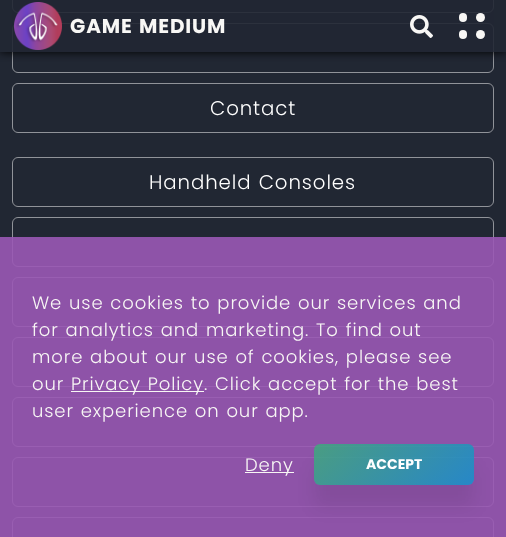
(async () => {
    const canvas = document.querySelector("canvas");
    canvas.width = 506;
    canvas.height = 537;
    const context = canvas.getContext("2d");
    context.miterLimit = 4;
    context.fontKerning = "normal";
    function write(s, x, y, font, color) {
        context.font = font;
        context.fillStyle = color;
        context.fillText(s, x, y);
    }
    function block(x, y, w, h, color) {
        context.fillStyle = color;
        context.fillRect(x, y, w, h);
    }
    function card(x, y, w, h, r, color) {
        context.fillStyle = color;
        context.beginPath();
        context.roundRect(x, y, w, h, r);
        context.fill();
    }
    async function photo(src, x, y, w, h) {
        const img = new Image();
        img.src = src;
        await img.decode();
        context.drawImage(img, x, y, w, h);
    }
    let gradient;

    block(0, 0, 506, 537, "rgb(33, 39, 51)");
    context.beginPath();
    context.roundRect(12.5, -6.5, 481, 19, 5.5);
    context.strokeStyle = "rgb(144, 147, 153)";
    context.stroke();
    context.beginPath();
    context.roundRect(12.5, 23.5, 481, 49, 5.5);
    context.stroke();
    context.save();
    context.beginPath();
    context.rect(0, 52, 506, 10);
    context.clip();
    context.fillStyle = "rgb(0, 0, 0)";
    context.filter = "blur(5px)";
    context.beginPath();
    context.rect(0, 0, 506, 52);
    context.fill();
    context.filter = "none";
    context.restore();
    block(12, 0, 482, 52, "rgba(33, 39, 51, 0.9)");
    await photo("media/1.png", 14, 2, 48, 48);
    context.letterSpacing = "0.9px";
    context.wordSpacing = "1px";
    write("GAME MEDIUM", 70, 33, "bold 20px Poppins", "rgb(248, 247, 245)");
    await photo("media/2.png", 410, 15, 23, 23);
    card(459, 13, 8, 9, 4, "rgb(248, 247, 245)");
    context.beginPath();
    context.arc(480.5, 17.5, 4.5, 0, Math.PI * 2);
    context.fill();
    card(459, 30, 8, 9, 4, "rgb(248, 247, 245)");
    context.beginPath();
    context.arc(480.5, 34.5, 4.5, 0, Math.PI * 2);
    context.fill();
    context.beginPath();
    context.roundRect(12.5, 83.5, 481, 49, 5.5);
    context.stroke();
    context.wordSpacing = "0px";
    write("Contact", 210, 115, "300 19.75px Poppins", "rgb(255, 255, 255)");
    context.beginPath();
    context.roundRect(12.5, 157.5, 481, 49, 5.5);
    context.stroke();
    context.wordSpacing = "1px";
    write("Handheld Consoles", 149, 189, "300 19.75px Poppins", "rgb(255, 255, 255)");
    context.beginPath();
    context.roundRect(12.5, 217.5, 481, 49, 5.5);
    context.stroke();
    context.beginPath();
    context.roundRect(12.5, 277.5, 481, 49, 5.5);
    context.stroke();
    context.beginPath();
    context.roundRect(12.5, 337.5, 481, 49, 5.5);
    context.stroke();
    context.beginPath();
    context.roundRect(12.5, 397.5, 481, 49, 5.5);
    context.stroke();
    context.beginPath();
    context.roundRect(12.5, 457.5, 481, 49, 5.5);
    context.stroke();
    context.beginPath();
    context.roundRect(12.5, 517.5, 481, 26, 5.5);
    context.stroke();
    block(0, 237, 506, 300, "rgba(154, 89, 181, 0.9)");
    write("We use cookies to provide our services and", 32, 309, "300 18px Poppins", "rgb(248, 247, 245)");
    write("for analytics and", 32, 336, "300 18px Poppins", "rgb(248, 247, 245)");
    write("marketing. To find out", 206, 336, "300 18px Poppins", "rgb(248, 247, 245)");
    write("more about our use of cookies, please see", 32, 363, "300 18px Poppins", "rgb(248, 247, 245)");
    context.wordSpacing = "0px";
    write("our", 32, 390, "300 18px Poppins", "rgb(248, 247, 245)");
    block(71, 391, 133, 1, "rgb(248, 247, 245)");
    context.wordSpacing = "1px";
    write("Privacy Policy. Click accept for the best", 71, 390, "300 18px Poppins", "rgb(248, 247, 245)");
    write("user experience on our app.", 32, 417, "300 18px Poppins", "rgb(248, 247, 245)");
    block(245, 472, 49, 1, "rgb(248, 247, 245)");
    context.wordSpacing = "0px";
    write("Deny", 245, 471, "300 18px Poppins", "rgb(248, 247, 245)");
    context.save();
    context.beginPath();
    context.moveTo(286, 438);
    context.lineTo(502, 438);
    context.lineTo(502, 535);
    context.lineTo(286, 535);
    context.closePath();
    context.moveTo(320, 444);
    context.lineTo(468, 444);
    context.bezierCurveTo(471.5, 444, 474, 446.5, 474, 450);
    context.lineTo(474, 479);
    context.bezierCurveTo(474, 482.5, 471.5, 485, 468, 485);
    context.lineTo(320, 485);
    context.bezierCurveTo(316.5, 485, 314, 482.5, 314, 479);
    context.lineTo(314, 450);
    context.bezierCurveTo(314, 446.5, 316.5, 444, 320, 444);
    context.closePath();
    context.clip("evenodd");
    context.fillStyle = "rgba(0, 0, 0, 0.07)";
    context.filter = "blur(9px)";
    context.beginPath();
    context.roundRect(314, 466, 160, 41, 6);
    context.fill();
    context.filter = "none";
    context.restore();
    gradient = context.createLinearGradient(344, 414, 444, 515);
    gradient.addColorStop(0, "rgba(57, 175, 120, 0.8)");
    gradient.addColorStop(1, "rgba(13, 148, 208, 0.8)");
    context.fillStyle = gradient;
    context.beginPath();
    context.roundRect(314, 444, 160, 41, 6);
    context.fill();
    context.letterSpacing = "0px";
    write("ACCEPT", 366, 469, "bold 14px Poppins", "rgb(255, 255, 255)");
})();
